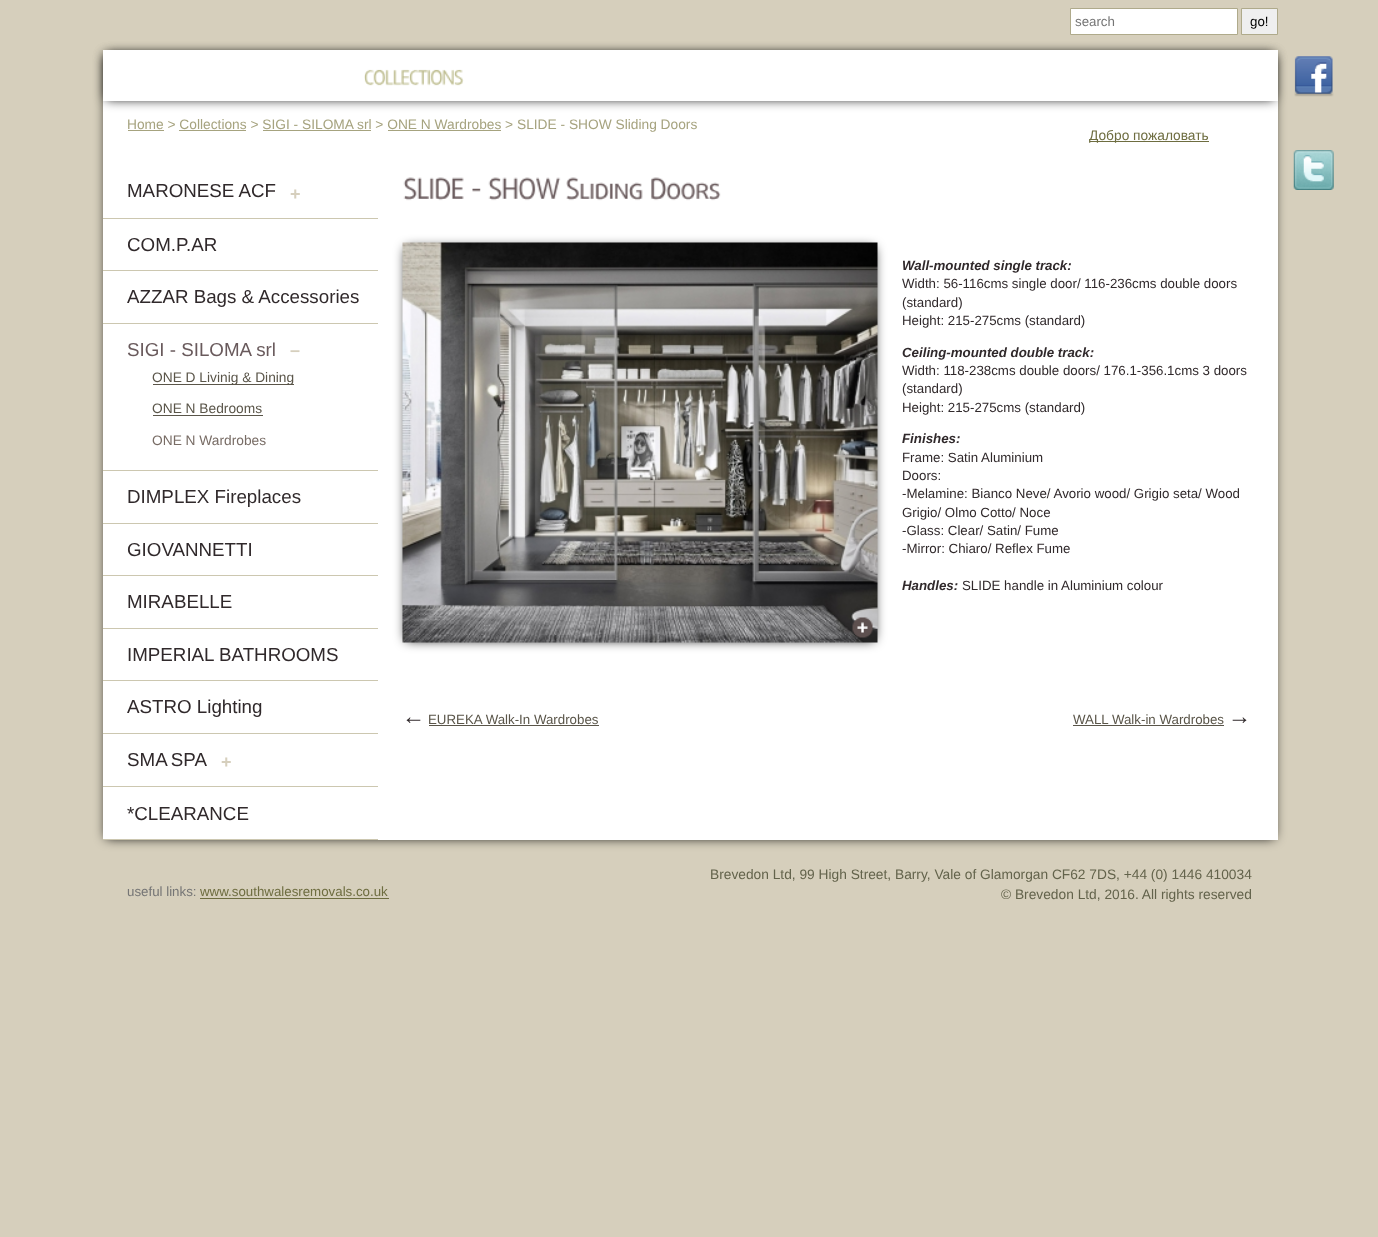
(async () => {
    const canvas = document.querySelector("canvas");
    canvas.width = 1378;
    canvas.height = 1237;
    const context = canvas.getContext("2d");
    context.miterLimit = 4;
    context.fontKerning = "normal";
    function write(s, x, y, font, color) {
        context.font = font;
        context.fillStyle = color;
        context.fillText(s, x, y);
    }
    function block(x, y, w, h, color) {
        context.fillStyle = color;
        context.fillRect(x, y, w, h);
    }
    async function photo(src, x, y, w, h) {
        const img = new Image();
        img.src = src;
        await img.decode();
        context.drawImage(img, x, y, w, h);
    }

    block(0, 0, 1378, 1237, "rgb(214, 207, 188)");
    context.fillStyle = "rgb(0, 0, 0)";
    context.filter = "blur(6px)";
    context.beginPath();
    context.rect(106, 55, 1168, 783);
    context.fill();
    context.filter = "none";
    block(103, 50, 1175, 790, "rgb(255, 255, 255)");
    block(128, 130, 36, 1, "rgb(166, 163, 127)");
    write("Home > Collections > SIGI - SILOMA srl > ONE N Wardrobes > SLIDE - SHOW Sliding Doors", 127, 129, "13.75px Liberation Sans", "rgb(166, 163, 127)");
    block(179, 130, 67, 1, "rgb(166, 163, 127)");
    block(263, 130, 108, 1, "rgb(166, 163, 127)");
    block(388, 130, 113, 1, "rgb(166, 163, 127)");
    context.save();
    context.beginPath();
    context.moveTo(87, 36);
    context.lineTo(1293, 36);
    context.lineTo(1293, 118);
    context.lineTo(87, 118);
    context.closePath();
    context.moveTo(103, 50);
    context.lineTo(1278, 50);
    context.lineTo(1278, 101);
    context.lineTo(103, 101);
    context.closePath();
    context.clip("evenodd");
    context.fillStyle = "rgb(0, 0, 0)";
    context.filter = "blur(6px)";
    context.beginPath();
    context.rect(106, 55, 1168, 44);
    context.fill();
    context.filter = "none";
    context.restore();
    context.fillStyle = "rgb(255, 255, 255)";
    context.beginPath();
    context.rect(1070.5, 8.5, 167, 26);
    context.fill();
    context.strokeStyle = "rgb(175, 170, 139)";
    context.stroke();
    write("search", 1075, 26, "13.3px Liberation Sans", "rgb(117, 117, 117)");
    context.fillStyle = "rgb(239, 239, 239)";
    context.beginPath();
    context.rect(1241.5, 8.5, 36, 26);
    context.fill();
    context.stroke();
    write("go!", 1250, 26, "13.3px Liberation Sans", "rgb(0, 0, 0)");
    await photo("media/1.png", 364, 69, 100, 17);
    await photo("media/2.png", 1294, 56, 40, 41);
    block(1090, 141, 119, 1, "rgb(110, 109, 64)");
    write("Добро пожаловать", 1089, 140, "13.75px Liberation Sans", "rgb(110, 109, 64)");
    await photo("media/3.png", 1293, 150, 41, 40);
    block(103, 218, 275, 1, "rgb(204, 199, 176)");
    write("MARONESE ACF", 127, 197, "18.75px Liberation Sans", "rgb(48, 41, 43)");
    write("+", 290, 200, "bold 18px Liberation Sans", "rgb(214, 207, 189)");
    block(103, 270, 275, 1, "rgb(204, 199, 176)");
    write("COM.P.AR", 127, 251, "18.75px Liberation Sans", "rgb(48, 41, 43)");
    block(103, 323, 275, 1, "rgb(204, 199, 176)");
    write("AZZAR Bags & Accessories", 127, 303, "18.75px Liberation Sans", "rgb(48, 41, 43)");
    block(103, 470, 275, 1, "rgb(204, 199, 176)");
    write("SIGI - SILOMA srl", 127, 356, "18.75px Liberation Sans", "rgb(105, 90, 92)");
    write("–", 290, 356, "bold 18px Liberation Sans", "rgb(214, 207, 189)");
    block(153, 384, 141, 1, "rgb(90, 85, 73)");
    write("ONE D Livinig & Dining", 152, 382, "13.75px Liberation Sans", "rgb(90, 85, 73)");
    write("ONE N Bedrooms", 152, 413, "13.75px Liberation Sans", "rgb(90, 85, 73)");
    block(153, 415, 110, 1, "rgb(90, 85, 73)");
    write("ONE N Wardrobes", 152, 445, "13.75px Liberation Sans", "rgb(120, 108, 101)");
    block(103, 523, 275, 1, "rgb(204, 199, 176)");
    write("DIMPLEX Fireplaces", 127, 503, "18.75px Liberation Sans", "rgb(48, 41, 43)");
    block(103, 575, 275, 1, "rgb(204, 199, 176)");
    write("GIOVANNETTI", 127, 556, "18.75px Liberation Sans", "rgb(48, 41, 43)");
    block(103, 628, 275, 1, "rgb(204, 199, 176)");
    write("MIRABELLE", 127, 608, "18.75px Liberation Sans", "rgb(48, 41, 43)");
    block(103, 680, 275, 1, "rgb(204, 199, 176)");
    write("IMPERIAL BATHROOMS", 127, 661, "18.75px Liberation Sans", "rgb(48, 41, 43)");
    block(103, 733, 275, 1, "rgb(204, 199, 176)");
    write("ASTRO Lighting", 127, 713, "18.75px Liberation Sans", "rgb(48, 41, 43)");
    block(103, 786, 275, 1, "rgb(204, 199, 176)");
    context.wordSpacing = "-1px";
    write("SMA SPA", 127, 766, "18.75px Liberation Sans", "rgb(48, 41, 43)");
    context.wordSpacing = "0px";
    write("+", 221, 768, "bold 18px Liberation Sans", "rgb(214, 207, 189)");
    block(103, 839, 275, 1, "rgb(204, 199, 176)");
    write("*CLEARANCE", 127, 820, "18.75px Liberation Sans", "rgb(48, 41, 43)");
    await photo("media/4.png", 403, 177, 61, 24);
    await photo("media/5.png", 472, 188, 9, 4);
    await photo("media/6.png", 488, 177, 73, 24);
    await photo("media/7.png", 566, 177, 77, 24);
    await photo("media/8.png", 651, 177, 70, 24);
    context.fillStyle = "rgb(0, 0, 0)";
    context.filter = "blur(6px)";
    context.beginPath();
    context.rect(406, 248, 468, 392);
    context.fill();
    context.filter = "none";
    await photo("media/9.png", 402, 242, 476, 401);
    await photo("media/10.png", 852, 617, 21, 21);
    write("Wall-mounted single track:", 902, 270, "italic bold 13.3px Liberation Sans", "rgb(48, 41, 43)");
    write("Width: 56-116cms single door/ 116-236cms double doors", 902, 288, "13.3px Liberation Sans", "rgb(48, 41, 43)");
    write("(standard)", 902, 307, "13.3px Liberation Sans", "rgb(48, 41, 43)");
    write("Height: 215-275cms (standard)", 902, 325, "13.3px Liberation Sans", "rgb(48, 41, 43)");
    write("Ceiling-mounted double track:", 902, 357, "italic bold 13.3px Liberation Sans", "rgb(48, 41, 43)");
    write("Width: 118-238cms double doors/ 176.1-356.1cms 3 doors", 902, 375, "13.3px Liberation Sans", "rgb(48, 41, 43)");
    write("(standard)", 902, 393, "13.3px Liberation Sans", "rgb(48, 41, 43)");
    write("Height: 215-275cms (standard)", 902, 412, "13.3px Liberation Sans", "rgb(48, 41, 43)");
    write("Finishes:", 902, 443, "italic bold 13.3px Liberation Sans", "rgb(48, 41, 43)");
    write("Frame: Satin Aluminium", 902, 462, "13.3px Liberation Sans", "rgb(48, 41, 43)");
    write("Doors:", 902, 480, "13.3px Liberation Sans", "rgb(48, 41, 43)");
    write("-Melamine: Bianco Neve/ Avorio wood/ Grigio seta/ Wood", 902, 498, "13.3px Liberation Sans", "rgb(48, 41, 43)");
    write("Grigio/ Olmo Cotto/ Noce", 902, 517, "13.3px Liberation Sans", "rgb(48, 41, 43)");
    write("-Glass: Clear/ Satin/ Fume", 902, 535, "13.3px Liberation Sans", "rgb(48, 41, 43)");
    write("-Mirror: Chiaro/ Reflex Fume", 902, 553, "13.3px Liberation Sans", "rgb(48, 41, 43)");
    write("Handles:", 902, 590, "italic bold 13.3px Liberation Sans", "rgb(48, 41, 43)");
    write("SLIDE handle in Aluminium colour", 962, 590, "13.3px Liberation Sans", "rgb(48, 41, 43)");
    write("←", 402, 724, "23px Liberation Sans", "rgb(48, 41, 43)");
    write("EUREKA Walk-In Wardrobes", 428, 724, "13.3px Liberation Sans", "rgb(90, 85, 73)");
    block(429, 725, 170, 1, "rgb(90, 85, 73)");
    write("WALL Walk-in Wardrobes", 1073, 724, "13.3px Liberation Sans", "rgb(90, 85, 73)");
    block(1073, 725, 151, 1, "rgb(90, 85, 73)");
    write("→", 1228, 724, "23px Liberation Sans", "rgb(48, 41, 43)");
    write("useful links:", 127, 896, "13.3px Liberation Sans", "rgb(117, 117, 117)");
    write("www.southwalesremovals.co.uk", 200, 896, "13.3px Liberation Sans", "rgb(110, 109, 64)");
    block(200, 898, 189, 1, "rgb(110, 109, 64)");
    write("Brevedon Ltd, 99 High Street, Barry, Vale of Glamorgan CF62 7DS, +44 (0) 1446 410034", 710, 879, "13.75px Liberation Sans", "rgb(99, 99, 75)");
    write("© Brevedon Ltd, 2016. All rights reserved", 1001, 899, "13.75px Liberation Sans", "rgb(99, 99, 75)");
})();
